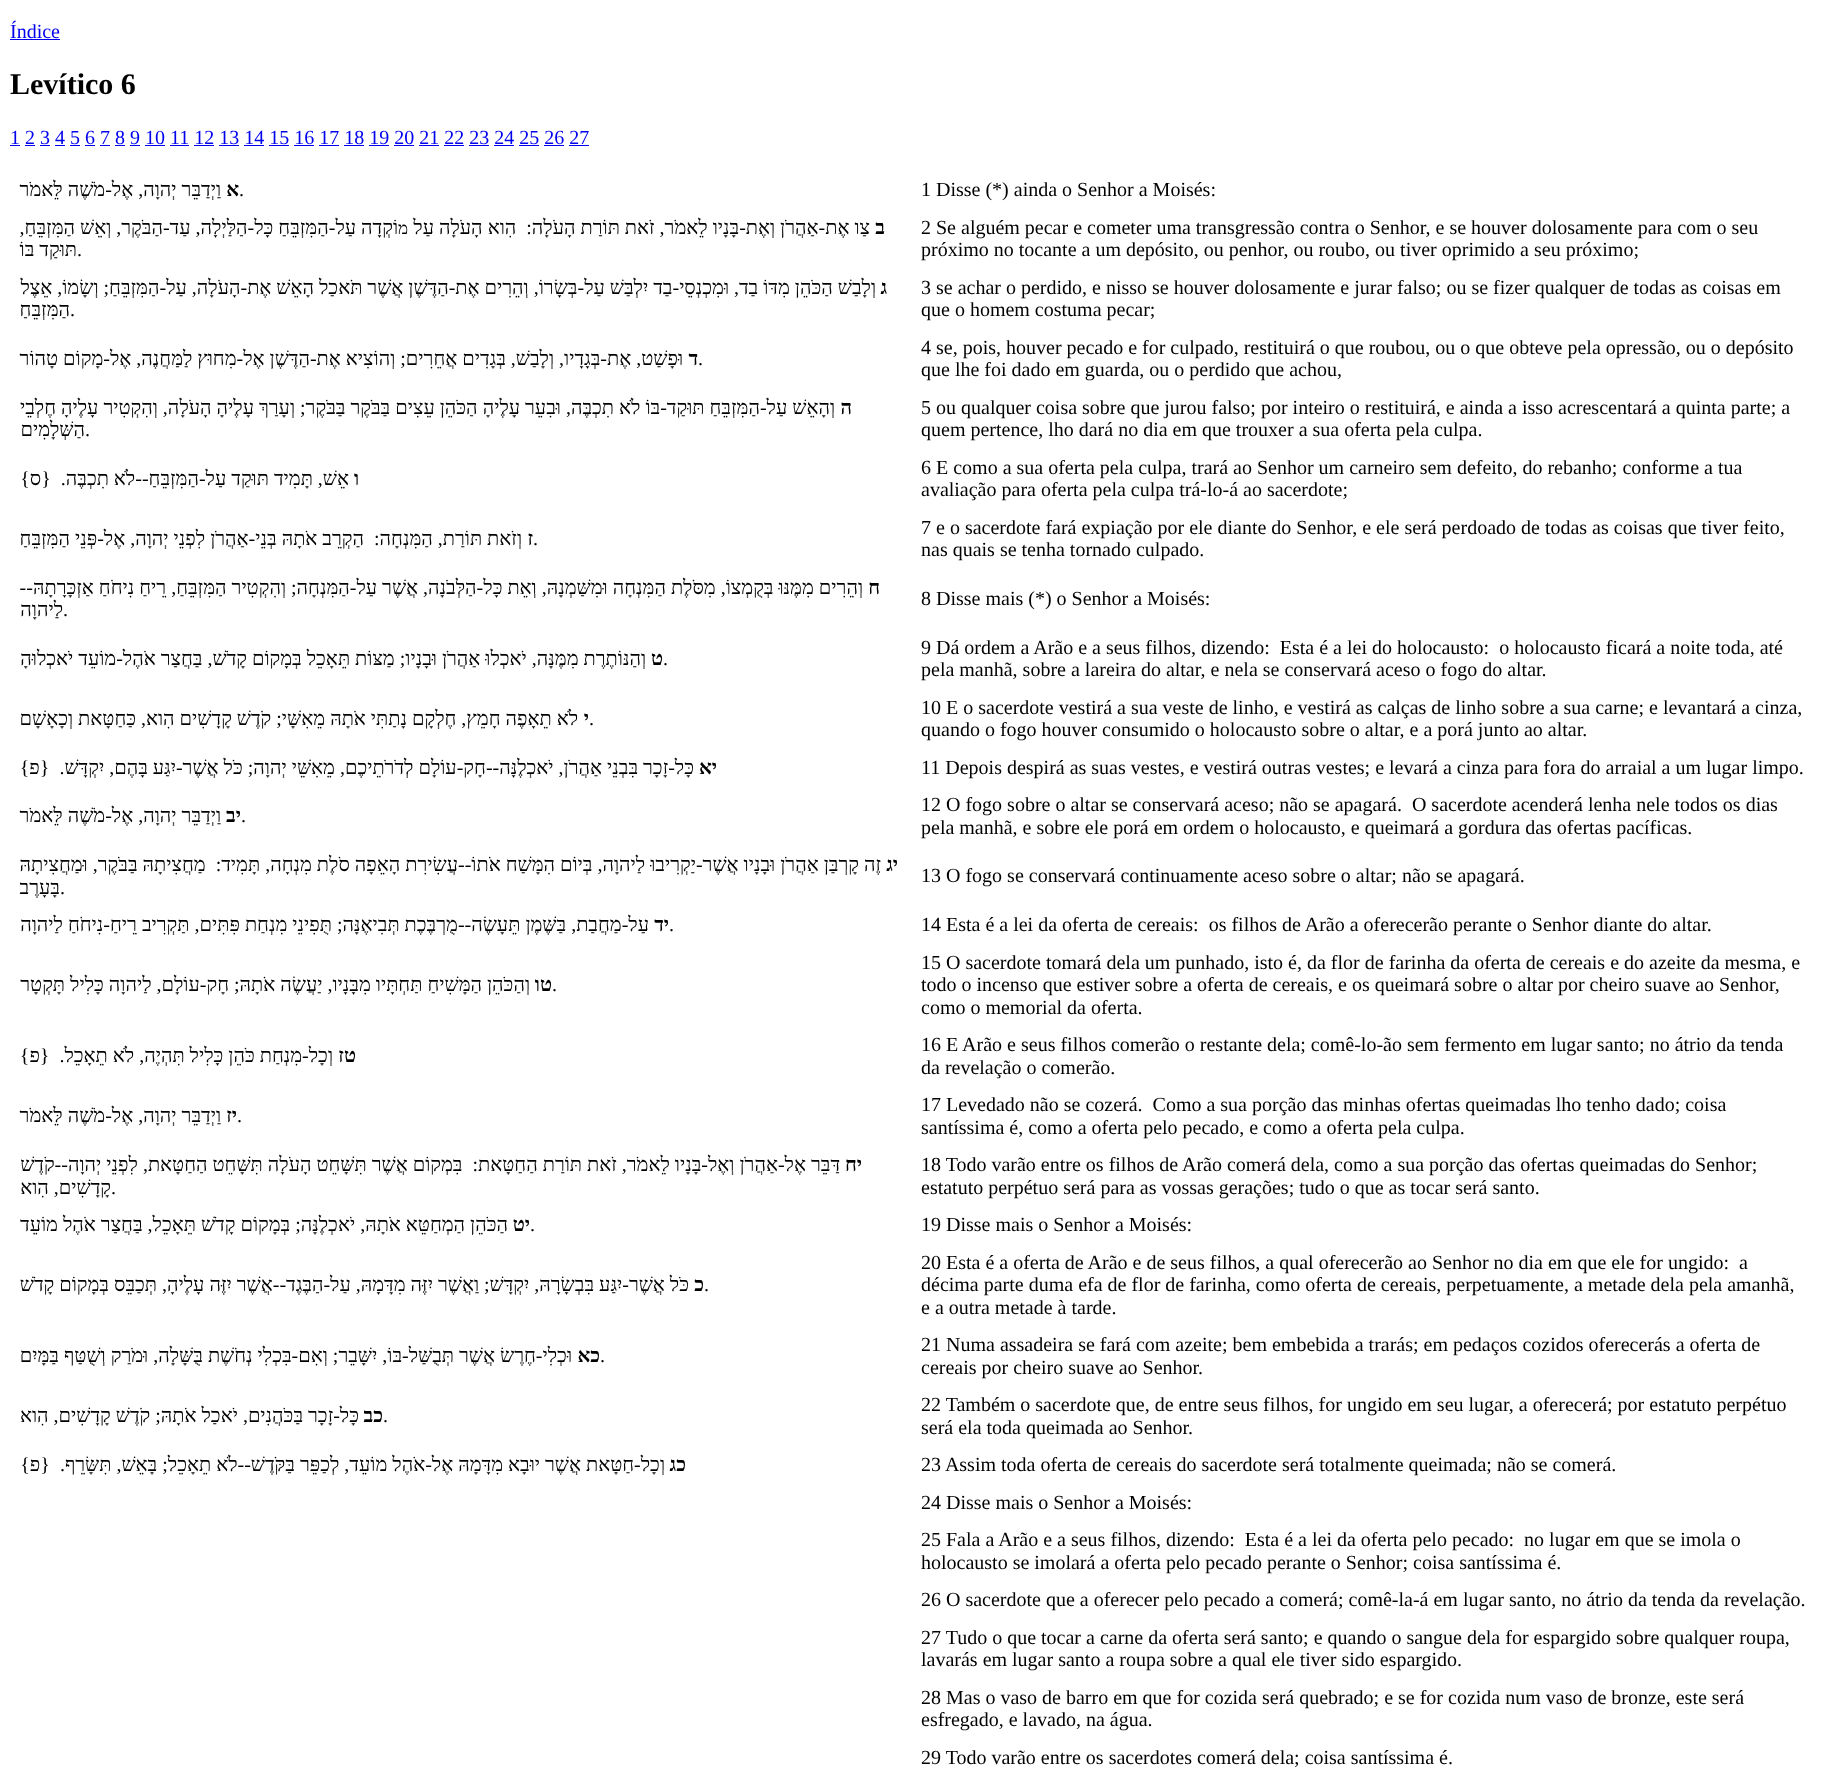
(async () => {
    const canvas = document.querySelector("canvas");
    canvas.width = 1827;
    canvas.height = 1783;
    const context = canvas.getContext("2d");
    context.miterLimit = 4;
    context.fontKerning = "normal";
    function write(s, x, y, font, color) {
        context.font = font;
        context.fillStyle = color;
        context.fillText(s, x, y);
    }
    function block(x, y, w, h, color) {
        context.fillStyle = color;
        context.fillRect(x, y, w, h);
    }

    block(0, 0, 1827, 1783, "rgb(255, 255, 255)");
    write("Índice", 10, 38, "20px Liberation Serif", "rgb(0, 0, 238)");
    block(10, 39, 50, 1, "rgb(0, 0, 238)");
    write("Levítico 6", 10, 94, "bold 30px Liberation Serif", "rgb(0, 0, 0)");
    write("1 2 3 4 5 6 7 8 9 10 11 12 13 14 15 16 17 18 19 20 21 22 23 24 25 26 27", 10, 144, "20px Liberation Serif", "rgb(0, 0, 238)");
    block(10, 145, 10, 1, "rgb(0, 0, 238)");
    block(25, 145, 10, 1, "rgb(0, 0, 238)");
    block(40, 145, 10, 1, "rgb(0, 0, 238)");
    block(55, 145, 10, 1, "rgb(0, 0, 238)");
    block(70, 145, 10, 1, "rgb(0, 0, 238)");
    block(85, 145, 10, 1, "rgb(0, 0, 238)");
    block(100, 145, 10, 1, "rgb(0, 0, 238)");
    block(115, 145, 10, 1, "rgb(0, 0, 238)");
    block(130, 145, 10, 1, "rgb(0, 0, 238)");
    block(145, 145, 20, 1, "rgb(0, 0, 238)");
    block(170, 145, 19, 1, "rgb(0, 0, 238)");
    block(194, 145, 20, 1, "rgb(0, 0, 238)");
    block(219, 145, 20, 1, "rgb(0, 0, 238)");
    block(244, 145, 20, 1, "rgb(0, 0, 238)");
    block(269, 145, 20, 1, "rgb(0, 0, 238)");
    block(294, 145, 20, 1, "rgb(0, 0, 238)");
    block(319, 145, 20, 1, "rgb(0, 0, 238)");
    block(344, 145, 20, 1, "rgb(0, 0, 238)");
    block(369, 145, 20, 1, "rgb(0, 0, 238)");
    block(394, 145, 20, 1, "rgb(0, 0, 238)");
    block(419, 145, 20, 1, "rgb(0, 0, 238)");
    block(444, 145, 20, 1, "rgb(0, 0, 238)");
    block(469, 145, 20, 1, "rgb(0, 0, 238)");
    block(494, 145, 20, 1, "rgb(0, 0, 238)");
    block(519, 145, 20, 1, "rgb(0, 0, 238)");
    block(544, 145, 20, 1, "rgb(0, 0, 238)");
    block(569, 145, 20, 1, "rgb(0, 0, 238)");
    context.direction = "rtl";
    write("וַיְדַבֵּר יְהוָה, אֶל-מֹשֶׁה לֵּאמֹר", 221, 196, "20px Liberation Serif", "rgb(0, 0, 0)");
    write("א", 239, 196, "bold 20px Liberation Serif", "rgb(0, 0, 0)");
    context.direction = "ltr";
    write(".", 239, 196, "20px Liberation Serif", "rgb(0, 0, 0)");
    write("1 Disse (*) ainda o Senhor a Moisés:", 921, 196, "20px Liberation Serif", "rgb(0, 0, 0)");
    context.direction = "rtl";
    write("וֹקְדָה עַל-הַמִּזְבֵּחַ כָּל-הַלַּיְלָה, עַד-הַבֹּקֶר, וְאֵשׁ הַמִּזְבֵּחַ,", 398, 234, "20px Liberation Serif", "rgb(0, 0, 0)");
    write("מ", 408, 234, "17px Liberation Serif", "rgb(0, 0, 0)");
    write("צַו אֶת-אַהֲרֹן וְאֶת-בָּנָיו לֵאמֹר, זֹאת תּוֹרַת הָעֹלָה:  הִוא הָעֹלָה עַל", 870, 234, "20px Liberation Serif", "rgb(0, 0, 0)");
    write("ב", 885, 234, "bold 20px Liberation Serif", "rgb(0, 0, 0)");
    write("תּוּקַד בּוֹ", 77, 256, "20px Liberation Serif", "rgb(0, 0, 0)");
    context.direction = "ltr";
    write(".", 77, 256, "20px Liberation Serif", "rgb(0, 0, 0)");
    write("2 Se alguém pecar e cometer uma transgressão contra o Senhor, e se houver dolosamente para com o seu", 921, 234, "20px Liberation Serif", "rgb(0, 0, 0)");
    write("próximo no tocante a um depósito, ou penhor, ou roubo, ou tiver oprimido a seu próximo;", 921, 256, "20px Liberation Serif", "rgb(0, 0, 0)");
    context.direction = "rtl";
    write("וְלָבַשׁ הַכֹּהֵן מִדּוֹ בַד, וּמִכְנְסֵי-בַד יִלְבַּשׁ עַל-בְּשָׂרוֹ, וְהֵרִים אֶת-הַדֶּשֶׁן אֲשֶׁר תֹּאכַל הָאֵשׁ אֶת-הָעֹלָה, עַל-הַמִּזְבֵּחַ; וְשָׂמוֹ, אֵצֶל", 876, 294, "20px Liberation Serif", "rgb(0, 0, 0)");
    write("ג", 887, 294, "bold 20px Liberation Serif", "rgb(0, 0, 0)");
    write("הַמִּזְבֵּחַ", 70, 316, "20px Liberation Serif", "rgb(0, 0, 0)");
    context.direction = "ltr";
    write(".", 70, 316, "20px Liberation Serif", "rgb(0, 0, 0)");
    write("3 se achar o perdido, e nisso se houver dolosamente e jurar falso; ou se fizer qualquer de todas as coisas em", 921, 294, "20px Liberation Serif", "rgb(0, 0, 0)");
    write("que o homem costuma pecar;", 921, 316, "20px Liberation Serif", "rgb(0, 0, 0)");
    context.direction = "rtl";
    write("וּפָשַׁט, אֶת-בְּגָדָיו, וְלָבַשׁ, בְּגָדִים אֲחֵרִים; וְהוֹצִיא אֶת-הַדֶּשֶׁן אֶל-מִחוּץ לַמַּחֲנֶה, אֶל-מָקוֹם טָהוֹר", 683, 365, "20px Liberation Serif", "rgb(0, 0, 0)");
    write("ד", 698, 365, "bold 20px Liberation Serif", "rgb(0, 0, 0)");
    context.direction = "ltr";
    write(".", 698, 365, "20px Liberation Serif", "rgb(0, 0, 0)");
    write("4 se, pois, houver pecado e for culpado, restituirá o que roubou, ou o que obteve pela opressão, ou o depósito", 921, 354, "20px Liberation Serif", "rgb(0, 0, 0)");
    write("que lhe foi dado em guarda, ou o perdido que achou,", 921, 376, "20px Liberation Serif", "rgb(0, 0, 0)");
    context.direction = "rtl";
    write("וְהָאֵשׁ עַל-הַמִּזְבֵּחַ תּוּקַד-בּוֹ לֹא תִכְבֶּה, וּבִעֵר עָלֶיהָ הַכֹּהֵן עֵצִים בַּבֹּקֶר בַּבֹּקֶר; וְעָרַךְ עָלֶיהָ הָעֹלָה, וְהִקְטִיר עָלֶיהָ חֶלְבֵי", 835, 414, "20px Liberation Serif", "rgb(0, 0, 0)");
    write("ה", 852, 414, "bold 20px Liberation Serif", "rgb(0, 0, 0)");
    write("הַשְּׁלָמִים", 85, 436, "20px Liberation Serif", "rgb(0, 0, 0)");
    context.direction = "ltr";
    write(".", 85, 436, "20px Liberation Serif", "rgb(0, 0, 0)");
    write("5 ou qualquer coisa sobre que jurou falso; por inteiro o restituirá, e ainda a isso acrescentará a quinta parte; a", 921, 414, "20px Liberation Serif", "rgb(0, 0, 0)");
    write("quem pertence, lho dará no dia em que trouxer a sua oferta pela culpa.", 921, 436, "20px Liberation Serif", "rgb(0, 0, 0)");
    context.direction = "rtl";
    write("אֵשׁ, תָּמִיד תּוּקַד עַל-הַמִּזְבֵּחַ--לֹא תִכְבֶּה.  {ס}", 349, 485, "20px Liberation Serif", "rgb(0, 0, 0)");
    write("ו", 359, 485, "bold 20px Liberation Serif", "rgb(0, 0, 0)");
    context.direction = "ltr";
    write("6 E como a sua oferta pela culpa, trará ao Senhor um carneiro sem defeito, do rebanho; conforme a tua", 921, 474, "20px Liberation Serif", "rgb(0, 0, 0)");
    write("avaliação para oferta pela culpa trá-lo-á ao sacerdote;", 921, 496, "20px Liberation Serif", "rgb(0, 0, 0)");
    context.direction = "rtl";
    write("וְזֹאת תּוֹרַת, הַמִּנְחָה:  הַקְרֵב אֹתָהּ בְּנֵי-אַהֲרֹן לִפְנֵי יְהוָה, אֶל-פְּנֵי הַמִּזְבֵּחַ", 522, 545, "20px Liberation Serif", "rgb(0, 0, 0)");
    write("ז", 533, 545, "bold 20px Liberation Serif", "rgb(0, 0, 0)");
    context.direction = "ltr";
    write(".", 533, 545, "20px Liberation Serif", "rgb(0, 0, 0)");
    write("7 e o sacerdote fará expiação por ele diante do Senhor, e ele será perdoado de todas as coisas que tiver feito,", 921, 534, "20px Liberation Serif", "rgb(0, 0, 0)");
    write("nas quais se tenha tornado culpado.", 921, 556, "20px Liberation Serif", "rgb(0, 0, 0)");
    context.direction = "rtl";
    write("וְהֵרִים מִמֶּנּוּ בְּקֻמְצוֹ, מִסֹּלֶת הַמִּנְחָה וּמִשַּׁמְנָהּ, וְאֵת כָּל-הַלְּבֹנָה, אֲשֶׁר עַל-הַמִּנְחָה; וְהִקְטִיר הַמִּזְבֵּחַ, רֵיחַ נִיחֹחַ אַזְכָּרָתָהּ--", 863, 594, "20px Liberation Serif", "rgb(0, 0, 0)");
    write("ח", 880, 594, "bold 20px Liberation Serif", "rgb(0, 0, 0)");
    write("לַיהוָה", 63, 616, "20px Liberation Serif", "rgb(0, 0, 0)");
    context.direction = "ltr";
    write(".", 63, 616, "20px Liberation Serif", "rgb(0, 0, 0)");
    write("8 Disse mais (*) o Senhor a Moisés:", 921, 605, "20px Liberation Serif", "rgb(0, 0, 0)");
    context.direction = "rtl";
    write("וְהַנּוֹתֶרֶת מִמֶּנָּה, יֹאכְלוּ אַהֲרֹן וּבָנָיו; מַצּוֹת תֵּאָכֵל בְּמָקוֹם קָדֹשׁ, בַּחֲצַר אֹהֶל-מוֹעֵד יֹאכְלוּהָ", 646, 665, "20px Liberation Serif", "rgb(0, 0, 0)");
    write("ט", 663, 665, "bold 20px Liberation Serif", "rgb(0, 0, 0)");
    context.direction = "ltr";
    write(".", 663, 665, "20px Liberation Serif", "rgb(0, 0, 0)");
    write("9 Dá ordem a Arão e a seus filhos, dizendo:  Esta é a lei do holocausto:  o holocausto ficará a noite toda, até", 921, 654, "20px Liberation Serif", "rgb(0, 0, 0)");
    write("pela manhã, sobre a lareira do altar, e nela se conservará aceso o fogo do altar.", 921, 676, "20px Liberation Serif", "rgb(0, 0, 0)");
    context.direction = "rtl";
    write("לֹא תֵאָפֶה חָמֵץ, חֶלְקָם נָתַתִּי אֹתָהּ מֵאִשָּׁי; קֹדֶשׁ קָדָשִׁים הִוא, כַּחַטָּאת וְכָאָשָׁם", 578, 725, "20px Liberation Serif", "rgb(0, 0, 0)");
    write("י", 589, 725, "bold 20px Liberation Serif", "rgb(0, 0, 0)");
    context.direction = "ltr";
    write(".", 589, 725, "20px Liberation Serif", "rgb(0, 0, 0)");
    write("10 E o sacerdote vestirá a sua veste de linho, e vestirá as calças de linho sobre a sua carne; e levantará a cinza,", 921, 714, "20px Liberation Serif", "rgb(0, 0, 0)");
    write("quando o fogo houver consumido o holocausto sobre o altar, e a porá junto ao altar.", 921, 736, "20px Liberation Serif", "rgb(0, 0, 0)");
    context.direction = "rtl";
    write("כָּל-זָכָר בִּבְנֵי אַהֲרֹן, יֹאכְלֶנָּה--חָק-עוֹלָם לְדֹרֹתֵיכֶם, מֵאִשֵּׁי יְהוָה; כֹּל אֲשֶׁר-יִגַּע בָּהֶם, יִקְדָּשׁ.  {פ}", 694, 774, "20px Liberation Serif", "rgb(0, 0, 0)");
    write("יא", 717, 774, "bold 20px Liberation Serif", "rgb(0, 0, 0)");
    context.direction = "ltr";
    write("11 Depois despirá as suas vestes, e vestirá outras vestes; e levará a cinza para fora do arraial a um lugar limpo.", 921, 774, "20px Liberation Serif", "rgb(0, 0, 0)");
    context.direction = "rtl";
    write("וַיְדַבֵּר יְהוָה, אֶל-מֹשֶׁה לֵּאמֹר", 221, 822, "20px Liberation Serif", "rgb(0, 0, 0)");
    write("יב", 241, 822, "bold 20px Liberation Serif", "rgb(0, 0, 0)");
    context.direction = "ltr";
    write(".", 241, 822, "20px Liberation Serif", "rgb(0, 0, 0)");
    write("12 O fogo sobre o altar se conservará aceso; não se apagará.  O sacerdote acenderá lenha nele todos os dias", 921, 811, "20px Liberation Serif", "rgb(0, 0, 0)");
    write("pela manhã, e sobre ele porá em ordem o holocausto, e queimará a gordura das ofertas pacíficas.", 921, 834, "20px Liberation Serif", "rgb(0, 0, 0)");
    context.direction = "rtl";
    write("זֶה קָרְבַּן אַהֲרֹן וּבָנָיו אֲשֶׁר-יַקְרִיבוּ לַיהוָה, בְּיוֹם הִמָּשַׁח אֹתוֹ--עֲשִׂירִת הָאֵפָה סֹלֶת מִנְחָה, תָּמִיד:  מַחֲצִיתָהּ בַּבֹּקֶר, וּמַחֲצִיתָהּ", 881, 871, "20px Liberation Serif", "rgb(0, 0, 0)");
    write("יג", 898, 871, "bold 20px Liberation Serif", "rgb(0, 0, 0)");
    write("בָּעָרֶב", 60, 894, "20px Liberation Serif", "rgb(0, 0, 0)");
    context.direction = "ltr";
    write(".", 60, 894, "20px Liberation Serif", "rgb(0, 0, 0)");
    write("13 O fogo se conservará continuamente aceso sobre o altar; não se apagará.", 921, 882, "20px Liberation Serif", "rgb(0, 0, 0)");
    context.direction = "rtl";
    write("עַל-מַחֲבַת, בַּשֶּׁמֶן תֵּעָשֶׂה--מֻרְבֶּכֶת תְּבִיאֶנָּה; תֻּפִינֵי מִנְחַת פִּתִּים, תַּקְרִיב רֵיחַ-נִיחֹחַ לַיהוָה", 649, 931, "20px Liberation Serif", "rgb(0, 0, 0)");
    write("יד", 669, 931, "bold 20px Liberation Serif", "rgb(0, 0, 0)");
    context.direction = "ltr";
    write(".", 669, 931, "20px Liberation Serif", "rgb(0, 0, 0)");
    write("14 Esta é a lei da oferta de cereais:  os filhos de Arão a oferecerão perante o Senhor diante do altar.", 921, 931, "20px Liberation Serif", "rgb(0, 0, 0)");
    context.direction = "rtl";
    write("וְהַכֹּהֵן הַמָּשִׁיחַ תַּחְתָּיו מִבָּנָיו, יַעֲשֶׂה אֹתָהּ; חָק-עוֹלָם, לַיהוָה כָּלִיל תָּקְטָר", 530, 991, "20px Liberation Serif", "rgb(0, 0, 0)");
    write("טו", 552, 991, "bold 20px Liberation Serif", "rgb(0, 0, 0)");
    context.direction = "ltr";
    write(".", 552, 991, "20px Liberation Serif", "rgb(0, 0, 0)");
    write("15 O sacerdote tomará dela um punhado, isto é, da flor de farinha da oferta de cereais e do azeite da mesma, e", 921, 969, "20px Liberation Serif", "rgb(0, 0, 0)");
    write("todo o incenso que estiver sobre a oferta de cereais, e os queimará sobre o altar por cheiro suave ao Senhor,", 921, 991, "20px Liberation Serif", "rgb(0, 0, 0)");
    write("como o memorial da oferta.", 921, 1014, "20px Liberation Serif", "rgb(0, 0, 0)");
    context.direction = "rtl";
    write("וְכָל-מִנְחַת כֹּהֵן כָּלִיל תִּהְיֶה, לֹא תֵאָכֵל.  {פ}", 333, 1062, "20px Liberation Serif", "rgb(0, 0, 0)");
    write("טז", 356, 1062, "bold 20px Liberation Serif", "rgb(0, 0, 0)");
    context.direction = "ltr";
    write("16 E Arão e seus filhos comerão o restante dela; comê-lo-ão sem fermento em lugar santo; no átrio da tenda", 921, 1051, "20px Liberation Serif", "rgb(0, 0, 0)");
    write("da revelação o comerão.", 921, 1074, "20px Liberation Serif", "rgb(0, 0, 0)");
    context.direction = "rtl";
    write("וַיְדַבֵּר יְהוָה, אֶל-מֹשֶׁה לֵּאמֹר", 221, 1122, "20px Liberation Serif", "rgb(0, 0, 0)");
    write("יז", 237, 1122, "bold 20px Liberation Serif", "rgb(0, 0, 0)");
    context.direction = "ltr";
    write(".", 237, 1122, "20px Liberation Serif", "rgb(0, 0, 0)");
    write("17 Levedado não se cozerá.  Como a sua porção das minhas ofertas queimadas lho tenho dado; coisa", 921, 1111, "20px Liberation Serif", "rgb(0, 0, 0)");
    write("santíssima é, como a oferta pelo pecado, e como a oferta pela culpa.", 921, 1134, "20px Liberation Serif", "rgb(0, 0, 0)");
    context.direction = "rtl";
    write("דַּבֵּר אֶל-אַהֲרֹן וְאֶל-בָּנָיו לֵאמֹר, זֹאת תּוֹרַת הַחַטָּאת:  בִּמְקוֹם אֲשֶׁר תִּשָּׁחֵט הָעֹלָה תִּשָּׁחֵט הַחַטָּאת, לִפְנֵי יְהוָה--קֹדֶשׁ", 840, 1171, "20px Liberation Serif", "rgb(0, 0, 0)");
    write("יח", 862, 1171, "bold 20px Liberation Serif", "rgb(0, 0, 0)");
    write("קָדָשִׁים, הִוא", 111, 1194, "20px Liberation Serif", "rgb(0, 0, 0)");
    context.direction = "ltr";
    write(".", 111, 1194, "20px Liberation Serif", "rgb(0, 0, 0)");
    write("18 Todo varão entre os filhos de Arão comerá dela, como a sua porção das ofertas queimadas do Senhor;", 921, 1171, "20px Liberation Serif", "rgb(0, 0, 0)");
    write("estatuto perpétuo será para as vossas gerações; tudo o que as tocar será santo.", 921, 1194, "20px Liberation Serif", "rgb(0, 0, 0)");
    context.direction = "rtl";
    write("הַכֹּהֵן הַמְחַטֵּא אֹתָהּ, יֹאכְלֶנָּה; בְּמָקוֹם קָדֹשׁ תֵּאָכֵל, בַּחֲצַר אֹהֶל מוֹעֵד", 508, 1231, "20px Liberation Serif", "rgb(0, 0, 0)");
    write("יט", 530, 1231, "bold 20px Liberation Serif", "rgb(0, 0, 0)");
    context.direction = "ltr";
    write(".", 530, 1231, "20px Liberation Serif", "rgb(0, 0, 0)");
    write("19 Disse mais o Senhor a Moisés:", 921, 1231, "20px Liberation Serif", "rgb(0, 0, 0)");
    context.direction = "rtl";
    write("כֹּל אֲשֶׁר-יִגַּע בִּבְשָׂרָהּ, יִקְדָּשׁ; וַאֲשֶׁר יִזֶּה מִדָּמָהּ, עַל-הַבֶּגֶד--אֲשֶׁר יִזֶּה עָלֶיהָ, תְּכַבֵּס בְּמָקוֹם קָדֹשׁ", 689, 1291, "20px Liberation Serif", "rgb(0, 0, 0)");
    write("כ", 704, 1291, "bold 20px Liberation Serif", "rgb(0, 0, 0)");
    context.direction = "ltr";
    write(".", 704, 1291, "20px Liberation Serif", "rgb(0, 0, 0)");
    write("20 Esta é a oferta de Arão e de seus filhos, a qual oferecerão ao Senhor no dia em que ele for ungido:  a", 921, 1269, "20px Liberation Serif", "rgb(0, 0, 0)");
    write("décima parte duma efa de flor de farinha, como oferta de cereais, perpetuamente, a metade dela pela amanhã,", 921, 1291, "20px Liberation Serif", "rgb(0, 0, 0)");
    write("e a outra metade à tarde.", 921, 1314, "20px Liberation Serif", "rgb(0, 0, 0)");
    context.direction = "rtl";
    write("וּכְלִי-חֶרֶשׂ אֲשֶׁר תְּבֻשַּׁל-בּוֹ, יִשָּׁבֵר; וְאִם-בִּכְלִי נְחֹשֶׁת בֻּשָּׁלָה, וּמֹרַק וְשֻׁטַּף בַּמָּיִם", 572, 1362, "20px Liberation Serif", "rgb(0, 0, 0)");
    write("כא", 600, 1362, "bold 20px Liberation Serif", "rgb(0, 0, 0)");
    context.direction = "ltr";
    write(".", 600, 1362, "20px Liberation Serif", "rgb(0, 0, 0)");
    write("21 Numa assadeira se fará com azeite; bem embebida a trarás; em pedaços cozidos oferecerás a oferta de", 921, 1351, "20px Liberation Serif", "rgb(0, 0, 0)");
    write("cereais por cheiro suave ao Senhor.", 921, 1374, "20px Liberation Serif", "rgb(0, 0, 0)");
    context.direction = "rtl";
    write("כָּל-זָכָר בַּכֹּהֲנִים, יֹאכַל אֹתָהּ; קֹדֶשׁ קָדָשִׁים, הִוא", 359, 1422, "20px Liberation Serif", "rgb(0, 0, 0)");
    write("כב", 383, 1422, "bold 20px Liberation Serif", "rgb(0, 0, 0)");
    context.direction = "ltr";
    write(".", 383, 1422, "20px Liberation Serif", "rgb(0, 0, 0)");
    write("22 Também o sacerdote que, de entre seus filhos, for ungido em seu lugar, a oferecerá; por estatuto perpétuo", 921, 1411, "20px Liberation Serif", "rgb(0, 0, 0)");
    write("será ela toda queimada ao Senhor.", 921, 1434, "20px Liberation Serif", "rgb(0, 0, 0)");
    context.direction = "rtl";
    write("וְכָל-חַטָּאת אֲשֶׁר יוּבָא מִדָּמָהּ אֶל-אֹהֶל מוֹעֵד, לְכַפֵּר בַּקֹּדֶשׁ--לֹא תֵאָכֵל; בָּאֵשׁ, תִּשָּׂרֵף.  {פ}", 665, 1471, "20px Liberation Serif", "rgb(0, 0, 0)");
    write("כג", 686, 1471, "bold 20px Liberation Serif", "rgb(0, 0, 0)");
    context.direction = "ltr";
    write("23 Assim toda oferta de cereais do sacerdote será totalmente queimada; não se comerá.", 921, 1471, "20px Liberation Serif", "rgb(0, 0, 0)");
    write("24 Disse mais o Senhor a Moisés:", 921, 1509, "20px Liberation Serif", "rgb(0, 0, 0)");
    write("25 Fala a Arão e a seus filhos, dizendo:  Esta é a lei da oferta pelo pecado:  no lugar em que se imola o", 921, 1546, "20px Liberation Serif", "rgb(0, 0, 0)");
    write("holocausto se imolará a oferta pelo pecado perante o Senhor; coisa santíssima é.", 921, 1569, "20px Liberation Serif", "rgb(0, 0, 0)");
    write("26 O sacerdote que a oferecer pelo pecado a comerá; comê-la-á em lugar santo, no átrio da tenda da revelação.", 921, 1606, "20px Liberation Serif", "rgb(0, 0, 0)");
    write("27 Tudo o que tocar a carne da oferta será santo; e quando o sangue dela for espargido sobre qualquer roupa,", 921, 1644, "20px Liberation Serif", "rgb(0, 0, 0)");
    write("lavarás em lugar santo a roupa sobre a qual ele tiver sido espargido.", 921, 1666, "20px Liberation Serif", "rgb(0, 0, 0)");
    write("28 Mas o vaso de barro em que for cozida será quebrado; e se for cozida num vaso de bronze, este será", 921, 1704, "20px Liberation Serif", "rgb(0, 0, 0)");
    write("esfregado, e lavado, na água.", 921, 1726, "20px Liberation Serif", "rgb(0, 0, 0)");
    write("29 Todo varão entre os sacerdotes comerá dela; coisa santíssima é.", 921, 1764, "20px Liberation Serif", "rgb(0, 0, 0)");
})();
